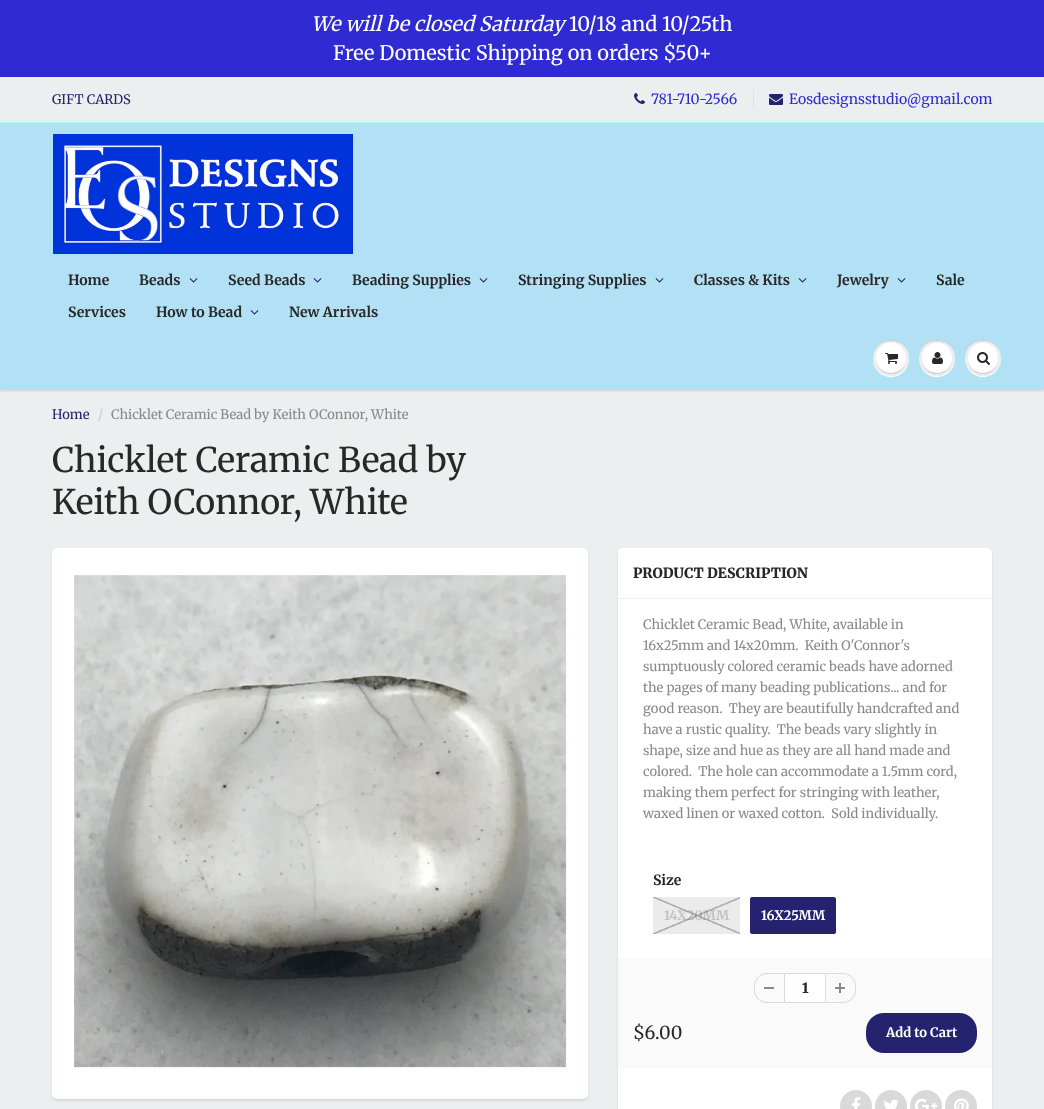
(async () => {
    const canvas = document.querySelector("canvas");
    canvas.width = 1044;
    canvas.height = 1109;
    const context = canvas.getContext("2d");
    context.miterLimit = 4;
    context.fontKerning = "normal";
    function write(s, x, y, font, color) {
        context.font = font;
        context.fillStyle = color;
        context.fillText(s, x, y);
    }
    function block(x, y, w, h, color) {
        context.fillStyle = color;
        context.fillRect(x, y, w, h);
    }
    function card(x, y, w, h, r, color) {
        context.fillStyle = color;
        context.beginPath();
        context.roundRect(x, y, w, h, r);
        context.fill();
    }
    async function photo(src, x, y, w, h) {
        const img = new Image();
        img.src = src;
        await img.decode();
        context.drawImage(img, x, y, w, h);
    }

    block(0, 0, 1044, 1109, "rgb(48, 42, 210)");
    write("We will be closed Saturday", 311, 31, "italic 20px Merriweather", "rgb(255, 255, 255)");
    write("10/18 and 10/25th", 569, 31, "20px Merriweather", "rgb(255, 255, 255)");
    write("Free Domestic Shipping on orders $50+", 333, 60, "20px Merriweather", "rgb(255, 255, 255)");
    block(0, 77, 1044, 45, "rgb(236, 239, 239)");
    write("GIFT CARDS", 52, 104, "13px Merriweather", "rgb(37, 35, 111)");
    await photo("media/1.png", 634, 93, 11, 11);
    write("781-710-2566", 651, 104, "14px Merriweather", "rgb(48, 42, 210)");
    block(753, 89, 1, 20, "rgb(178, 245, 242)");
    await photo("media/2.png", 769, 94, 14, 11);
    write("Eosdesignsstudio@gmail.com", 789, 104, "14px Merriweather", "rgb(48, 42, 210)");
    block(0, 389, 1044, 720, "rgb(236, 239, 239)");
    context.fillStyle = "rgba(11, 25, 28, 0.12)";
    context.filter = "blur(1px)";
    context.beginPath();
    context.rect(0, 124, 1044, 267);
    context.fill();
    context.filter = "none";
    block(0, 123, 1044, 266, "rgb(178, 224, 245)");
    block(0, 122, 1044, 1, "rgb(178, 245, 242)");
    await photo("media/3.png", 53, 134, 300, 120);
    write("Home", 68, 285, "bold 14px Merriweather", "rgb(40, 40, 39)");
    write("Beads", 139, 285, "bold 14px Merriweather", "rgb(40, 40, 39)");
    await photo("media/4.png", 189, 278, 9, 5);
    write("Seed Beads", 228, 285, "bold 14px Merriweather", "rgb(40, 40, 39)");
    await photo("media/4.png", 313, 278, 9, 5);
    write("Beading Supplies", 352, 285, "bold 14px Merriweather", "rgb(40, 40, 39)");
    await photo("media/4.png", 479, 278, 9, 5);
    write("Stringing Supplies", 518, 285, "bold 14px Merriweather", "rgb(40, 40, 39)");
    await photo("media/4.png", 655, 278, 9, 5);
    write("Classes & Kits", 694, 285, "bold 14px Merriweather", "rgb(40, 40, 39)");
    await photo("media/4.png", 798, 278, 9, 5);
    write("Jewelry", 837, 285, "bold 14px Merriweather", "rgb(40, 40, 39)");
    await photo("media/4.png", 897, 278, 9, 5);
    write("Sale", 936, 285, "bold 14px Merriweather", "rgb(40, 40, 39)");
    write("Services", 68, 317, "bold 14px Merriweather", "rgb(40, 40, 39)");
    write("How to Bead", 156, 317, "bold 14px Merriweather", "rgb(40, 40, 39)");
    await photo("media/4.png", 250, 310, 9, 5);
    write("New Arrivals", 289, 317, "bold 14px Merriweather", "rgb(40, 40, 39)");
    context.fillStyle = "rgb(255, 255, 255)";
    context.beginPath();
    context.moveTo(873, 358.5);
    context.bezierCurveTo(872.5, 376.5, 896, 384, 906, 369);
    context.bezierCurveTo(908, 366, 909, 362, 909, 358.5);
    context.bezierCurveTo(908.5, 368, 901, 376, 891, 376);
    context.bezierCurveTo(881, 376, 873.5, 368, 873, 358.5);
    context.closePath();
    context.fill();
    context.fillStyle = "rgb(237, 239, 239)";
    context.beginPath();
    context.arc(891, 358, 18, 0, Math.PI * 2);
    context.fill();
    context.fillStyle = "rgb(201, 203, 203)";
    context.beginPath();
    context.moveTo(891, 341);
    context.bezierCurveTo(903, 341, 909, 349.5, 909, 358.5);
    context.bezierCurveTo(909, 355, 908, 351, 906, 348);
    context.bezierCurveTo(896, 333, 872.5, 340.5, 873, 358.5);
    context.bezierCurveTo(873, 349.5, 879, 341, 891, 341);
    context.closePath();
    context.fill();
    context.beginPath();
    context.moveTo(906, 358.5);
    context.bezierCurveTo(905.5, 377.5, 876.5, 377.5, 876, 358.5);
    context.bezierCurveTo(875.5, 373.5, 895, 380, 903.5, 367.5);
    context.bezierCurveTo(905, 365, 906, 361.5, 906, 358.5);
    context.closePath();
    context.fill();
    context.fillStyle = "rgb(255, 255, 255)";
    context.beginPath();
    context.arc(891, 358, 15, 0, Math.PI * 2);
    context.fill();
    context.beginPath();
    context.moveTo(891, 344);
    context.bezierCurveTo(901, 344, 906, 351, 906, 358.5);
    context.bezierCurveTo(906, 355.5, 905, 352, 903.5, 349.5);
    context.bezierCurveTo(895, 337, 875.5, 343.5, 876, 358.5);
    context.bezierCurveTo(876, 351, 881, 344, 891, 344);
    context.closePath();
    context.fill();
    await photo("media/5.png", 885, 353, 13, 11);
    context.beginPath();
    context.moveTo(919, 358.5);
    context.bezierCurveTo(919, 362, 920, 366, 922, 369);
    context.bezierCurveTo(932, 384, 955.5, 376.5, 955, 358.5);
    context.bezierCurveTo(954.5, 368, 947, 376, 937, 376);
    context.bezierCurveTo(927, 376, 919.5, 368, 919, 358.5);
    context.closePath();
    context.fill();
    context.fillStyle = "rgb(237, 239, 239)";
    context.beginPath();
    context.arc(937, 358, 18, 0, Math.PI * 2);
    context.fill();
    context.fillStyle = "rgb(201, 203, 203)";
    context.beginPath();
    context.moveTo(937, 341);
    context.bezierCurveTo(949, 341, 955, 349.5, 955, 358.5);
    context.bezierCurveTo(955, 355, 954, 351, 952, 348);
    context.bezierCurveTo(942, 333, 918.5, 340.5, 919, 358.5);
    context.bezierCurveTo(919, 349.5, 925, 341, 937, 341);
    context.closePath();
    context.fill();
    context.beginPath();
    context.moveTo(952, 358.5);
    context.bezierCurveTo(951.5, 377.5, 922.5, 377.5, 922, 358.5);
    context.bezierCurveTo(922, 361.5, 923, 365, 924.5, 367.5);
    context.bezierCurveTo(933, 380, 952.5, 373.5, 952, 358.5);
    context.closePath();
    context.fill();
    context.fillStyle = "rgb(255, 255, 255)";
    context.beginPath();
    context.arc(937, 358, 15, 0, Math.PI * 2);
    context.fill();
    context.beginPath();
    context.moveTo(937, 344);
    context.bezierCurveTo(947, 344, 952, 351, 952, 358.5);
    context.bezierCurveTo(952, 355.5, 951, 352, 949.5, 349.5);
    context.bezierCurveTo(941, 337, 921.5, 343.5, 922, 358.5);
    context.bezierCurveTo(922, 351, 927, 344, 937, 344);
    context.closePath();
    context.fill();
    await photo("media/6.png", 932, 352, 11, 12);
    context.beginPath();
    context.moveTo(965, 358.5);
    context.bezierCurveTo(965, 362, 966, 366, 968, 369);
    context.bezierCurveTo(978, 384, 1001.5, 376.5, 1001, 358.5);
    context.bezierCurveTo(1000.5, 368, 993, 376, 983, 376);
    context.bezierCurveTo(973, 376, 965.5, 368, 965, 358.5);
    context.closePath();
    context.fill();
    context.fillStyle = "rgb(237, 239, 239)";
    context.beginPath();
    context.arc(983, 358, 18, 0, Math.PI * 2);
    context.fill();
    context.fillStyle = "rgb(201, 203, 203)";
    context.beginPath();
    context.moveTo(983, 341);
    context.bezierCurveTo(995, 341, 1001, 349.5, 1001, 358.5);
    context.bezierCurveTo(1001, 355, 1000, 351, 998, 348);
    context.bezierCurveTo(988, 333, 964.5, 340.5, 965, 358.5);
    context.bezierCurveTo(965, 349.5, 971, 341, 983, 341);
    context.closePath();
    context.fill();
    context.beginPath();
    context.moveTo(998, 358.5);
    context.bezierCurveTo(997.5, 377.5, 968.5, 377.5, 968, 358.5);
    context.bezierCurveTo(967.5, 373.5, 987, 380, 995.5, 367.5);
    context.bezierCurveTo(997, 365, 998, 361.5, 998, 358.5);
    context.closePath();
    context.fill();
    context.fillStyle = "rgb(255, 255, 255)";
    context.beginPath();
    context.arc(983, 358, 15, 0, Math.PI * 2);
    context.fill();
    context.beginPath();
    context.moveTo(983, 344);
    context.bezierCurveTo(993, 344, 998, 351, 998, 358.5);
    context.bezierCurveTo(998, 355.5, 997, 352, 995.5, 349.5);
    context.bezierCurveTo(987, 337, 967.5, 343.5, 968, 358.5);
    context.bezierCurveTo(968, 351, 973, 344, 983, 344);
    context.closePath();
    context.fill();
    await photo("media/7.png", 977, 352, 13, 13);
    write("Home", 52, 419, "13px Merriweather", "rgb(37, 35, 111)");
    write("/", 98, 419, "13px Merriweather", "rgb(204, 204, 204)");
    write("Chicklet Ceramic Bead by Keith OConnor, White", 111, 419, "13px Merriweather", "rgb(137, 137, 137)");
    write("Chicklet Ceramic Bead by", 52, 472, "34px Merriweather", "rgb(40, 40, 39)");
    write("Keith OConnor, White", 52, 514, "34px Merriweather", "rgb(40, 40, 39)");
    context.fillStyle = "rgba(11, 25, 28, 0.1)";
    context.filter = "blur(1px)";
    context.beginPath();
    context.roundRect(52, 550, 536, 551, 5);
    context.fill();
    context.filter = "none";
    card(52, 548, 536, 551, 5, "rgb(255, 255, 255)");
    await photo("media/8.png", 74, 575, 493, 493);
    context.fillStyle = "rgba(11, 25, 28, 0.1)";
    context.filter = "blur(1px)";
    context.beginPath();
    context.roundRect(618, 550, 374, 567, 5);
    context.fill();
    context.filter = "none";
    card(618, 548, 374, 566, 5, "rgb(255, 255, 255)");
    block(618, 598, 374, 1, "rgb(239, 239, 239)");
    write("PRODUCT DESCRIPTION", 633, 578, "900 14px Merriweather", "rgb(40, 40, 39)");
    write("Chicklet Ceramic Bead, White, available in", 643, 629, "13px Merriweather", "rgb(137, 137, 137)");
    write("16x25mm and 14x20mm.  Keith O'Connor's", 643, 650, "13px Merriweather", "rgb(137, 137, 137)");
    write("sumptuously colored ceramic beads have adorned", 643, 671, "13px Merriweather", "rgb(137, 137, 137)");
    write("the pages of many beading publications... and for", 643, 692, "13px Merriweather", "rgb(137, 137, 137)");
    write("good reason.  They are beautifully handcrafted and", 643, 713, "13px Merriweather", "rgb(137, 137, 137)");
    write("have a rustic quality.  The beads vary slightly in", 643, 734, "13px Merriweather", "rgb(137, 137, 137)");
    write("shape, size and hue as they are all hand made and", 643, 755, "13px Merriweather", "rgb(137, 137, 137)");
    write("colored.  The hole can accommodate a 1.5mm cord,", 643, 776, "13px Merriweather", "rgb(137, 137, 137)");
    write("making them perfect for stringing with leather,", 643, 797, "13px Merriweather", "rgb(137, 137, 137)");
    write("waxed linen or waxed cotton.  Sold individually.", 643, 818, "13px Merriweather", "rgb(137, 137, 137)");
    write("Size", 653, 885, "bold 14px Merriweather", "rgb(40, 40, 39)");
    context.fillStyle = "rgb(235, 235, 235)";
    context.beginPath();
    context.roundRect(653.5, 897.5, 86, 36, 1.5);
    context.fill();
    context.strokeStyle = "rgb(235, 235, 235)";
    context.stroke();
    write("14X20MM", 664, 920, "bold 13px Merriweather", "rgb(194, 194, 194)");
    await photo("media/9.png", 653, 897, 87, 37);
    context.fillStyle = "rgb(37, 35, 111)";
    context.beginPath();
    context.roundRect(750.5, 897.5, 85, 36, 1.5);
    context.fill();
    context.strokeStyle = "rgb(37, 35, 111)";
    context.stroke();
    write("16X25MM", 761, 920, "bold 13px Merriweather", "rgb(255, 255, 255)");
    block(618, 958, 374, 110, "rgb(250, 250, 250)");
    block(764, 987, 10, 2, "rgb(137, 137, 137)");
    context.fillStyle = "rgb(215, 219, 219)";
    context.beginPath();
    context.moveTo(767, 973);
    context.lineTo(784, 973);
    context.lineTo(784, 1003);
    context.lineTo(767, 1003);
    context.bezierCurveTo(760, 1003, 754, 997, 754, 990);
    context.lineTo(754, 986);
    context.bezierCurveTo(754, 979, 760, 973, 767, 973);
    context.closePath();
    context.moveTo(767, 974);
    context.lineTo(784, 974);
    context.lineTo(784, 1002);
    context.lineTo(767, 1002);
    context.bezierCurveTo(760.5, 1002, 755, 996.5, 755, 990);
    context.lineTo(755, 986);
    context.bezierCurveTo(755, 979.5, 760.5, 974, 767, 974);
    context.closePath();
    context.fill("evenodd");
    context.fillStyle = "rgb(255, 255, 255)";
    context.beginPath();
    context.rect(784.5, 973.5, 41, 29);
    context.fill();
    context.strokeStyle = "rgb(215, 219, 219)";
    context.stroke();
    write("1", 802, 993, "900 14px Merriweather", "rgb(40, 40, 39)");
    await photo("media/10.png", 835, 983, 10, 10);
    context.fillStyle = "rgb(215, 219, 219)";
    context.beginPath();
    context.moveTo(826, 973);
    context.lineTo(843, 973);
    context.bezierCurveTo(850, 973, 856, 979, 856, 986);
    context.lineTo(856, 990);
    context.bezierCurveTo(856, 997, 850, 1003, 843, 1003);
    context.lineTo(826, 1003);
    context.closePath();
    context.moveTo(826, 974);
    context.lineTo(843, 974);
    context.bezierCurveTo(849.5, 974, 855, 979.5, 855, 986);
    context.lineTo(855, 990);
    context.bezierCurveTo(855, 996.5, 849.5, 1002, 843, 1002);
    context.lineTo(826, 1002);
    context.closePath();
    context.fill("evenodd");
    write("$6.00", 633, 1039, "18px Merriweather", "rgb(40, 40, 39)");
    card(866, 1013, 111, 40, 18, "rgb(37, 35, 111)");
    write("Add to Cart", 886, 1037, "bold 13px Merriweather", "rgb(255, 255, 255)");
    context.fillStyle = "rgb(217, 217, 217)";
    context.beginPath();
    context.arc(856, 1106, 16, 0, Math.PI * 2);
    context.fill();
    await photo("media/11.png", 852, 1097, 9, 12);
    context.beginPath();
    context.arc(891, 1106, 16, 0, Math.PI * 2);
    context.fill();
    await photo("media/12.png", 884, 1099, 15, 10);
    context.beginPath();
    context.arc(926, 1106, 16, 0, Math.PI * 2);
    context.fill();
    await photo("media/13.png", 915, 1098, 23, 11);
    context.beginPath();
    context.arc(961, 1106, 16, 0, Math.PI * 2);
    context.fill();
    await photo("media/14.png", 954, 1098, 15, 11);
})();
